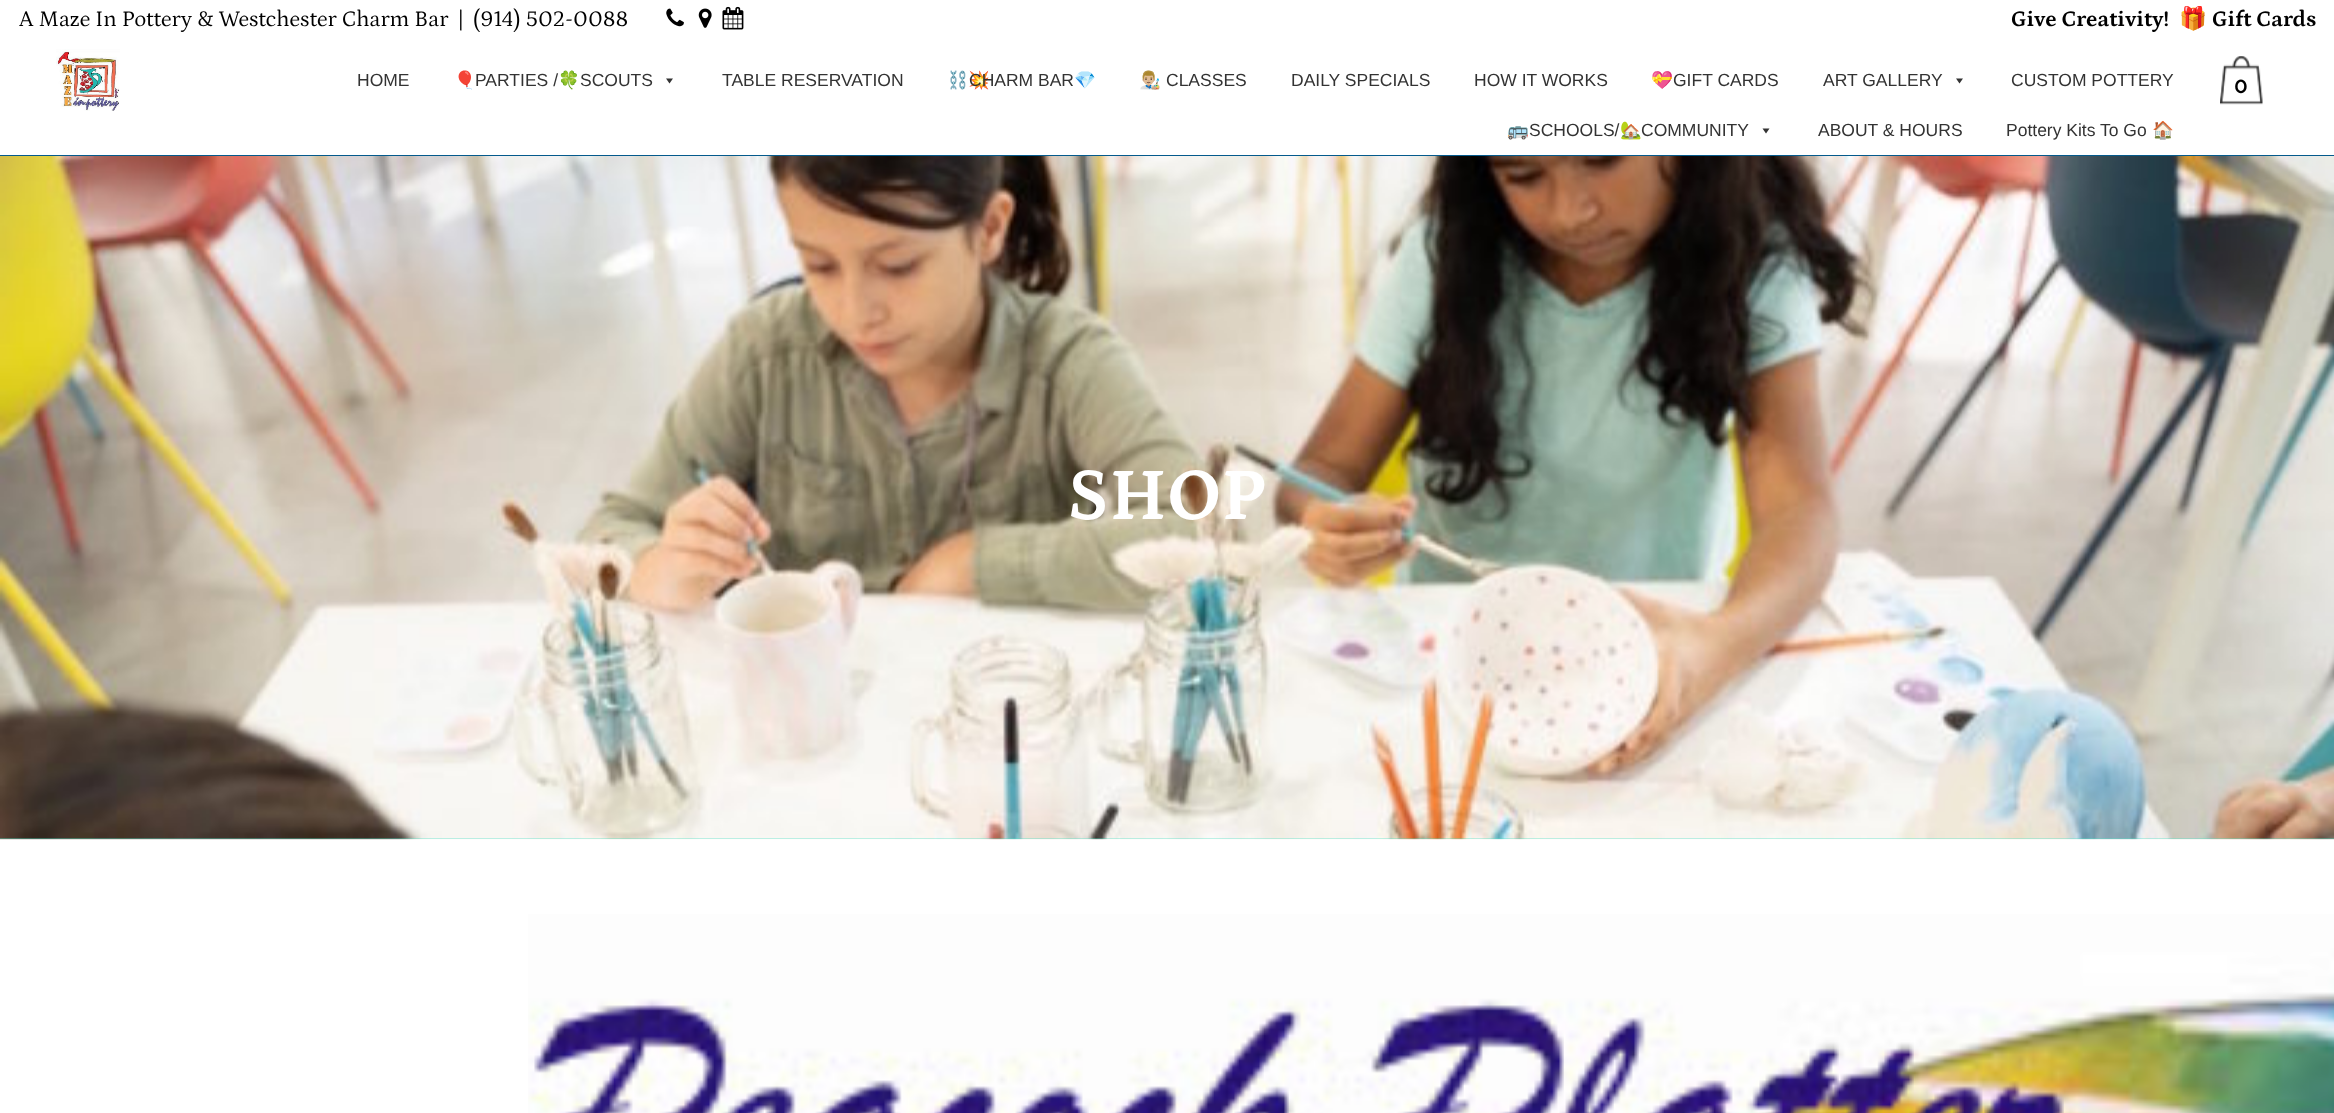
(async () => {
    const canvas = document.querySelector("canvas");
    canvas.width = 2334;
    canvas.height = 1113;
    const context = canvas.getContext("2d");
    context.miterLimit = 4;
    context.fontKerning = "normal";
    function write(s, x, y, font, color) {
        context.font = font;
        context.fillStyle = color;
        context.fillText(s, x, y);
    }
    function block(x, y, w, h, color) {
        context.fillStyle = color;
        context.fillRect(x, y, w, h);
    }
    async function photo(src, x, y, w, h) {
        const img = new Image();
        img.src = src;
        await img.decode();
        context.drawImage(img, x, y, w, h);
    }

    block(0, 0, 2334, 1113, "rgb(255, 255, 255)");
    write("A Maze In Pottery & Westchester Charm Bar  |", 19, 26, "22.5px Petrona", "rgb(0, 0, 0)");
    write("(914) 502-0088", 473, 26, "22.5px Petrona", "rgb(0, 0, 0)");
    await photo("media/1.png", 666, 8, 18, 19);
    await photo("media/2.png", 698, 8, 14, 20);
    await photo("media/3.png", 722, 6, 22, 24);
    write("Give Creativity!", 2011, 26, "bold 22.5px Petrona", "rgb(0, 0, 0)");
    write("🎁", 2179, 26, "bold 22.5px Noto Color Emoji", "rgb(0, 0, 0)");
    write("Gift Cards", 2212, 26, "bold 22.5px Petrona", "rgb(0, 0, 0)");
    block(0, 155, 2334, 1, "rgb(4, 90, 140)");
    await photo("media/4.png", 56, 49, 64, 62);
    write("HOME", 357, 86, "17.5px Liberation Sans", "rgb(51, 51, 51)");
    write("🎈", 454, 86, "17.5px Noto Color Emoji", "rgb(51, 51, 51)");
    write("PARTIES /", 475, 86, "17.5px Liberation Sans", "rgb(51, 51, 51)");
    write("🍀", 558, 86, "17.5px Noto Color Emoji", "rgb(51, 51, 51)");
    write("SCOUTS", 580, 86, "17.5px Liberation Sans", "rgb(51, 51, 51)");
    context.beginPath();
    context.moveTo(673, 78.5);
    context.lineTo(669.5, 83.5);
    context.lineTo(666, 78.5);
    context.closePath();
    context.fill();
    write("TABLE RESERVATION", 722, 86, "17.5px Liberation Sans", "rgb(51, 51, 51)");
    write("⛓️‍💥", 947, 86, "17.5px Noto Color Emoji", "rgb(51, 51, 51)");
    write("CHARM BAR", 969, 86, "17.5px Liberation Sans", "rgb(51, 51, 51)");
    write("💎", 1074, 86, "17.5px Noto Color Emoji", "rgb(51, 51, 51)");
    write("👨🏼‍🎨", 1139, 86, "17.5px Noto Color Emoji", "rgb(51, 51, 51)");
    write("CLASSES", 1166, 86, "17.5px Liberation Sans", "rgb(51, 51, 51)");
    write("DAILY SPECIALS", 1291, 86, "17.5px Liberation Sans", "rgb(51, 51, 51)");
    write("HOW IT WORKS", 1474, 86, "17.5px Liberation Sans", "rgb(51, 51, 51)");
    write("💝", 1651, 86, "17.5px Noto Color Emoji", "rgb(51, 51, 51)");
    write("GIFT CARDS", 1673, 86, "17.5px Liberation Sans", "rgb(51, 51, 51)");
    write("ART GALLERY", 1823, 86, "17.5px Liberation Sans", "rgb(51, 51, 51)");
    context.beginPath();
    context.moveTo(1963, 78.5);
    context.lineTo(1959.5, 83.5);
    context.lineTo(1956, 78.5);
    context.closePath();
    context.fill();
    write("CUSTOM POTTERY", 2011, 86, "17.5px Liberation Sans", "rgb(51, 51, 51)");
    write("🚌", 1507, 136, "17.5px Noto Color Emoji", "rgb(51, 51, 51)");
    write("SCHOOLS/", 1529, 136, "17.5px Liberation Sans", "rgb(51, 51, 51)");
    write("🏡", 1620, 136, "17.5px Noto Color Emoji", "rgb(51, 51, 51)");
    write("COMMUNITY", 1641, 136, "17.5px Liberation Sans", "rgb(51, 51, 51)");
    context.beginPath();
    context.moveTo(1769.5, 128.5);
    context.lineTo(1766, 133.5);
    context.lineTo(1762.5, 128.5);
    context.closePath();
    context.fill();
    write("ABOUT & HOURS", 1818, 136, "17.5px Liberation Sans", "rgb(51, 51, 51)");
    write("Pottery Kits To Go", 2006, 136, "17.5px Liberation Sans", "rgb(51, 51, 51)");
    write("🏠", 2152, 136, "17.5px Noto Color Emoji", "rgb(51, 51, 51)");
    await photo("media/5.png", 2220, 56, 43, 49);
    write("0", 2234, 93, "600 22.5px Raleway", "rgb(0, 0, 0)");
    block(0, 838, 2334, 1, "rgb(87, 226, 198)");
    await photo("media/6.png", 0, 156, 2334, 684);
    write("SHOP", 1067, 519, "bold 75px Petrona", "rgb(255, 255, 255)");
    await photo("media/7.png", 528, 914, 1806, 199);
})();
